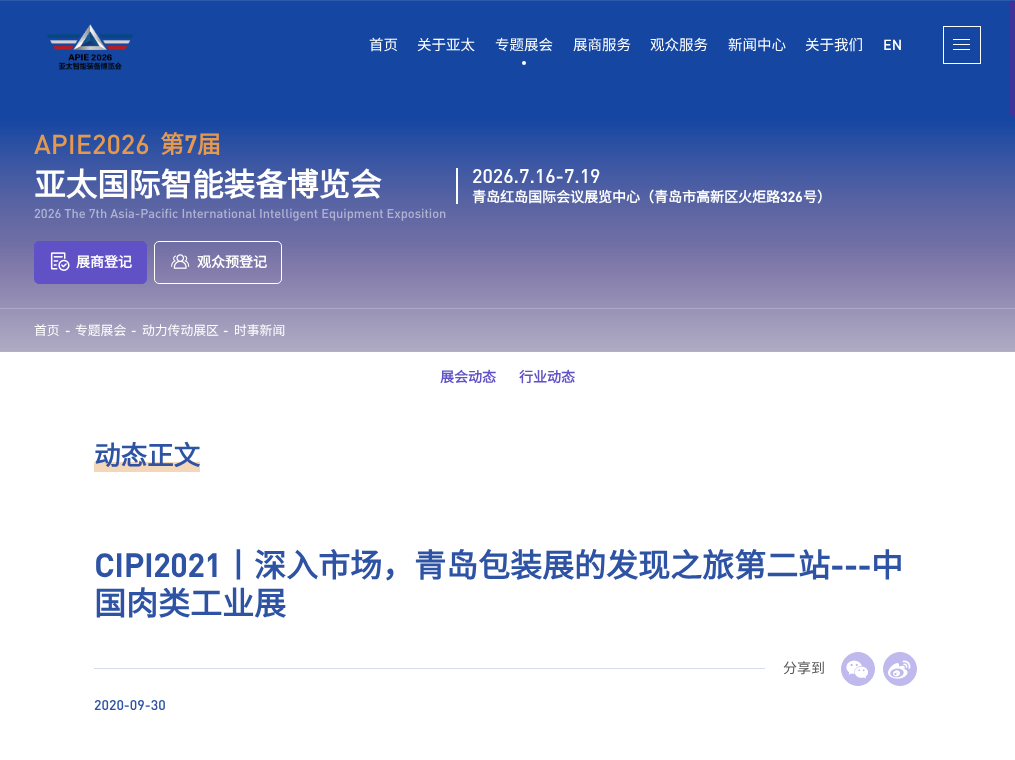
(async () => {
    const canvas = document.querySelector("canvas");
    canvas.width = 1015;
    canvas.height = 760;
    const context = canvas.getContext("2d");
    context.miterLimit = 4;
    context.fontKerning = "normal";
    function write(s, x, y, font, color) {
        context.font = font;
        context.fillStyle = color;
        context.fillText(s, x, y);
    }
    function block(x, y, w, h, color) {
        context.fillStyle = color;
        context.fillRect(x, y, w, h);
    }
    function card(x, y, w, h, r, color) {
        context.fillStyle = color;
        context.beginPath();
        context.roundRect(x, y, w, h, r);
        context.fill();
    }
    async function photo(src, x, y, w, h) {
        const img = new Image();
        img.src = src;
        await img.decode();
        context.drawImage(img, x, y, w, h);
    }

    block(0, 0, 1015, 760, "rgb(255, 255, 255)");
    await photo("media/2.png", 0, 0, 1015, 352);
    await photo("media/1.png", 47, 24, 87, 46);
    write("首页", 369, 50, "14.5px Noto Sans CJK SC", "rgb(255, 255, 255)");
    write("关于亚太", 417, 50, "14.5px Noto Sans CJK SC", "rgb(255, 255, 255)");
    write("专题展会", 495, 50, "14.5px Noto Sans CJK SC", "rgb(255, 255, 255)");
    context.beginPath();
    context.arc(524, 63, 2, 0, Math.PI * 2);
    context.fill();
    write("展商服务", 573, 50, "14.5px Noto Sans CJK SC", "rgb(255, 255, 255)");
    write("观众服务", 650, 50, "14.5px Noto Sans CJK SC", "rgb(255, 255, 255)");
    write("新闻中心", 728, 50, "14.5px Noto Sans CJK SC", "rgb(255, 255, 255)");
    write("关于我们", 805, 50, "14.5px Noto Sans CJK SC", "rgb(255, 255, 255)");
    write("EN", 883, 50, "500 14.5px DIN", "rgb(255, 255, 255)");
    context.strokeStyle = "rgb(255, 255, 255)";
    context.strokeRect(943.5, 26.5, 37, 37);
    block(953, 44, 17, 1, "rgb(255, 255, 255)");
    block(953, 39, 17, 1, "rgb(255, 255, 255)");
    block(953, 49, 17, 1, "rgb(255, 255, 255)");
    write("APIE2026", 34, 154, "500 27px DIN", "rgb(228, 153, 80)");
    write("第", 160, 153, "bold 24px Noto Sans CJK SC", "rgb(228, 153, 80)");
    write("7", 184, 153, "bold 24px DIN", "rgb(228, 153, 80)");
    write("届", 197, 153, "bold 24px Noto Sans CJK SC", "rgb(228, 153, 80)");
    write("亚太国际智能装备博览会", 34, 196, "bold 31.6px Noto Sans CJK SC", "rgb(255, 255, 255)");
    write("2026 The 7th Asia-Pacific International Intelligent Equipment Exposition", 34, 218, "500 12.8px DIN", "rgb(175, 179, 210)");
    block(456, 168, 2, 36, "rgb(255, 255, 255)");
    write("2026.7.16-7.19", 472, 183, "500 19.5px DIN", "rgb(255, 255, 255)");
    write("青岛红岛国际会议展览中心（青岛市高新区火炬路", 472, 202, "bold 14px Noto Sans CJK SC", "rgb(255, 255, 255)");
    write("326", 780, 202, "bold 14px DIN", "rgb(255, 255, 255)");
    write("号）", 803, 202, "bold 14px Noto Sans CJK SC", "rgb(255, 255, 255)");
    context.fillStyle = "rgb(96, 81, 199)";
    context.beginPath();
    context.roundRect(34.5, 241.5, 112, 42, 4.5);
    context.fill();
    context.strokeStyle = "rgb(96, 81, 199)";
    context.stroke();
    await photo("media/3.png", 50, 252, 20, 19);
    write("展商登记", 76, 267, "bold 14px Noto Sans CJK SC", "rgb(255, 255, 255)");
    context.beginPath();
    context.roundRect(154.5, 241.5, 127, 42, 4.5);
    context.strokeStyle = "rgb(255, 255, 255)";
    context.stroke();
    await photo("media/4.png", 171, 254, 19, 15);
    write("观众预登记", 197, 267, "bold 14px Noto Sans CJK SC", "rgb(255, 255, 255)");
    block(0, 308, 1015, 1, "rgb(173, 168, 197)");
    write("首页", 34, 335, "12.8px Noto Sans CJK SC", "rgb(255, 255, 255)");
    write("-", 65, 335, "500 12.8px DIN", "rgb(255, 255, 255)");
    write("专题展会", 75, 335, "12.8px Noto Sans CJK SC", "rgb(255, 255, 255)");
    write("-", 131, 335, "500 12.8px DIN", "rgb(255, 255, 255)");
    write("动力传动展区", 142, 335, "12.8px Noto Sans CJK SC", "rgb(255, 255, 255)");
    write("-", 223, 335, "500 12.8px DIN", "rgb(255, 255, 255)");
    write("时事新闻", 234, 335, "12.8px Noto Sans CJK SC", "rgb(255, 255, 255)");
    write("展会动态", 440, 382, "bold 14px Noto Sans CJK SC", "rgb(96, 81, 199)");
    write("行业动态", 519, 382, "bold 14px Noto Sans CJK SC", "rgb(96, 81, 199)");
    block(94, 462, 106, 10, "rgb(244, 214, 185)");
    write("动态正文", 94, 465, "bold 26.5px Noto Sans CJK SC", "rgb(46, 83, 164)");
    write("CIPI2021", 94, 577, "bold 32px DIN", "rgb(46, 83, 164)");
    write("丨深入市场，青岛包装展的发现之旅第二站", 222, 577, "bold 32px Noto Sans CJK SC", "rgb(46, 83, 164)");
    write("---", 830, 577, "bold 32px DIN", "rgb(46, 83, 164)");
    write("中", 871, 577, "bold 32px Noto Sans CJK SC", "rgb(46, 83, 164)");
    write("国肉类工业展", 94, 615, "bold 32px Noto Sans CJK SC", "rgb(46, 83, 164)");
    block(94, 668, 671, 1, "rgb(213, 221, 237)");
    write("分享到", 783, 673, "14px Noto Sans CJK SC", "rgb(88, 88, 88)");
    context.fillStyle = "rgb(192, 185, 238)";
    context.beginPath();
    context.arc(858, 669, 16.5, 0, Math.PI * 2);
    context.fill();
    context.strokeStyle = "rgb(192, 185, 238)";
    context.stroke();
    await photo("media/5.png", 846, 660, 22, 19);
    context.beginPath();
    context.arc(900, 669, 16.5, 0, Math.PI * 2);
    context.fill();
    context.stroke();
    await photo("media/6.png", 888, 660, 23, 19);
    write("2020-09-30", 94, 710, "500 14px DIN", "rgb(46, 83, 164)");
    card(1011, 1, 3, 115, 1.5, "rgba(156, 10, 131, 0.32)");
    context.beginPath();
    context.roundRect(1010.5, 0.5, 4, 116, 2);
    context.strokeStyle = "rgba(156, 10, 131, 0.32)";
    context.stroke();
})();
